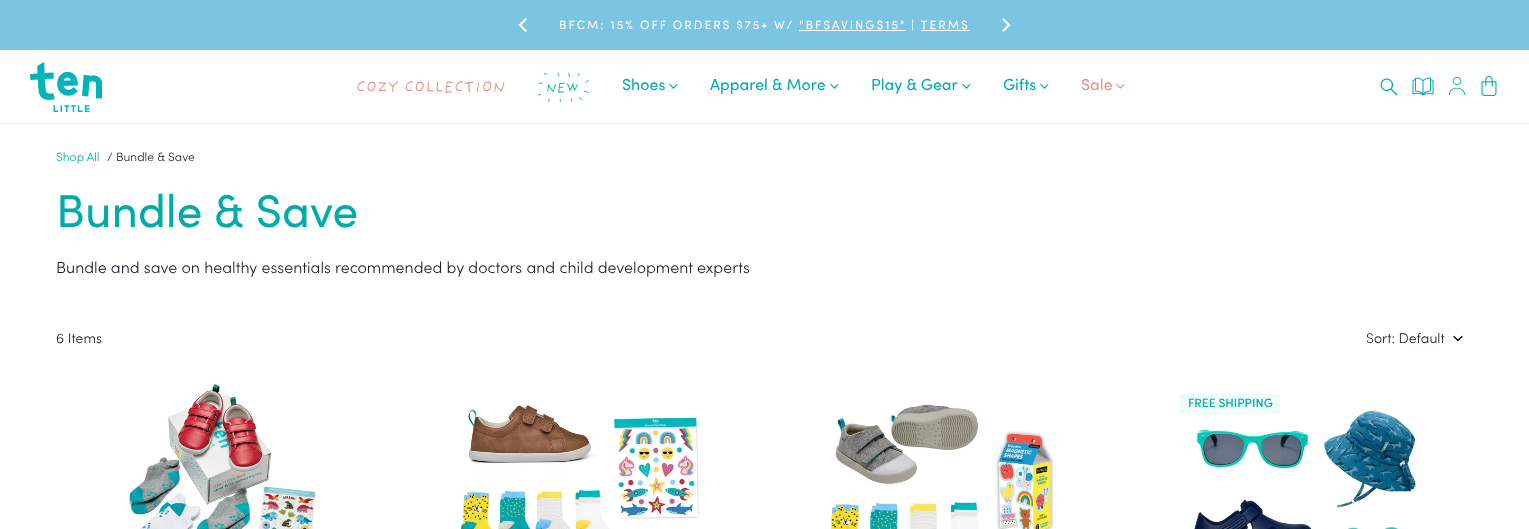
(async () => {
    const canvas = document.querySelector("canvas");
    canvas.width = 1529;
    canvas.height = 529;
    const context = canvas.getContext("2d");
    context.miterLimit = 4;
    context.fontKerning = "normal";
    function write(s, x, y, font, color) {
        context.font = font;
        context.fillStyle = color;
        context.fillText(s, x, y);
    }
    function block(x, y, w, h, color) {
        context.fillStyle = color;
        context.fillRect(x, y, w, h);
    }
    function card(x, y, w, h, r, color) {
        context.fillStyle = color;
        context.beginPath();
        context.roundRect(x, y, w, h, r);
        context.fill();
    }
    async function photo(src, x, y, w, h) {
        const img = new Image();
        img.src = src;
        await img.decode();
        context.drawImage(img, x, y, w, h);
    }

    block(0, 0, 1529, 529, "rgb(255, 255, 255)");
    block(0, 0, 1529, 50, "rgb(123, 196, 226)");
    context.fillStyle = "rgb(255, 255, 255)";
    context.beginPath();
    context.moveTo(527, 30.5);
    context.lineTo(525.5, 32);
    context.lineTo(518.5, 25);
    context.lineTo(520, 23.5);
    context.closePath();
    context.fill();
    context.beginPath();
    context.moveTo(527, 19.5);
    context.lineTo(520, 26.5);
    context.lineTo(518.5, 25);
    context.lineTo(525.5, 18);
    context.closePath();
    context.fill();
    context.letterSpacing = "2px";
    write("BFCM: 15% OFF ORDERS $75+ W/ \"BFSAVINGS15\" | TERMS", 559, 29, "12px 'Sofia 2'", "rgb(255, 255, 255)");
    block(799, 30, 107, 1, "rgb(255, 255, 255)");
    block(921, 30, 49, 1, "rgb(255, 255, 255)");
    context.beginPath();
    context.moveTo(1002, 19.5);
    context.lineTo(1003.5, 18);
    context.lineTo(1010.5, 25);
    context.lineTo(1009, 26.5);
    context.closePath();
    context.fill();
    context.beginPath();
    context.moveTo(1002, 30.5);
    context.lineTo(1009, 23.5);
    context.lineTo(1010.5, 25);
    context.lineTo(1003.5, 32);
    context.closePath();
    context.fill();
    block(0, 123, 1529, 1, "rgb(238, 238, 238)");
    await photo("media/1.png", 30, 62, 72, 50);
    context.letterSpacing = "0px";
    write("COZY COLLECTION", 356, 92, "16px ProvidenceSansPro", "rgb(228, 147, 134)");
    await photo("media/2.png", 538, 72, 51, 30);
    write("Shoes", 622, 90, "16px 'Sofia 2'", "rgb(0, 171, 170)");
    await photo("media/3.png", 669, 83, 9, 6);
    write("Apparel & More", 710, 90, "16px 'Sofia 2'", "rgb(0, 171, 170)");
    await photo("media/3.png", 830, 83, 9, 6);
    write("Play & Gear", 871, 90, "16px 'Sofia 2'", "rgb(0, 171, 170)");
    await photo("media/3.png", 962, 83, 9, 6);
    write("Gifts", 1003, 90, "16px 'Sofia 2'", "rgb(0, 171, 170)");
    await photo("media/3.png", 1040, 83, 9, 6);
    write("Sale", 1081, 90, "16px 'Sofia 2'", "rgb(228, 147, 134)");
    await photo("media/4.png", 1116, 83, 9, 6);
    await photo("media/5.png", 1380, 78, 18, 18);
    await photo("media/6.png", 1412, 77, 22, 19);
    await photo("media/7.png", 1448, 76, 18, 19);
    await photo("media/8.png", 1481, 76, 16, 20);
    write("Shop All", 56, 161, "12px Sofia", "rgb(0, 171, 170)");
    write("/", 107, 161, "12px Sofia", "rgb(22, 29, 37)");
    write("Bundle & Save", 116, 161, "12px Sofia", "rgb(22, 29, 37)");
    write("Bundle & Save", 56, 227, "46px 'Sofia 2'", "rgb(0, 171, 170)");
    write("Bundle and save on healthy essentials recommended by doctors and child development experts", 56, 273, "16px Sofia", "rgb(22, 29, 37)");
    write("6 Items", 56, 343, "14px Sofia", "rgb(22, 29, 37)");
    context.beginPath();
    context.moveTo(1454, 336.5);
    context.lineTo(1458, 340.5);
    context.lineTo(1462, 336.5);
    context.strokeStyle = "rgb(0, 0, 0)";
    context.lineWidth = 1.2;
    context.lineCap = "round";
    context.lineJoin = "round";
    context.stroke();
    write("Sort: Default", 1366, 343, "14px Sofia", "rgb(22, 29, 37)");
    await photo("media/9.png", 128, 384, 189, 145);
    await photo("media/10.png", 1193, 409, 225, 120);
    card(1180, 394, 100, 20, 4, "rgb(238, 252, 249)");
    write("FREE SHIPPING", 1188, 407, "12px 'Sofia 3'", "rgb(0, 171, 170)");
    await photo("media/11.png", 460, 405, 240, 124);
    await photo("media/12.png", 831, 404, 223, 125);
})();
